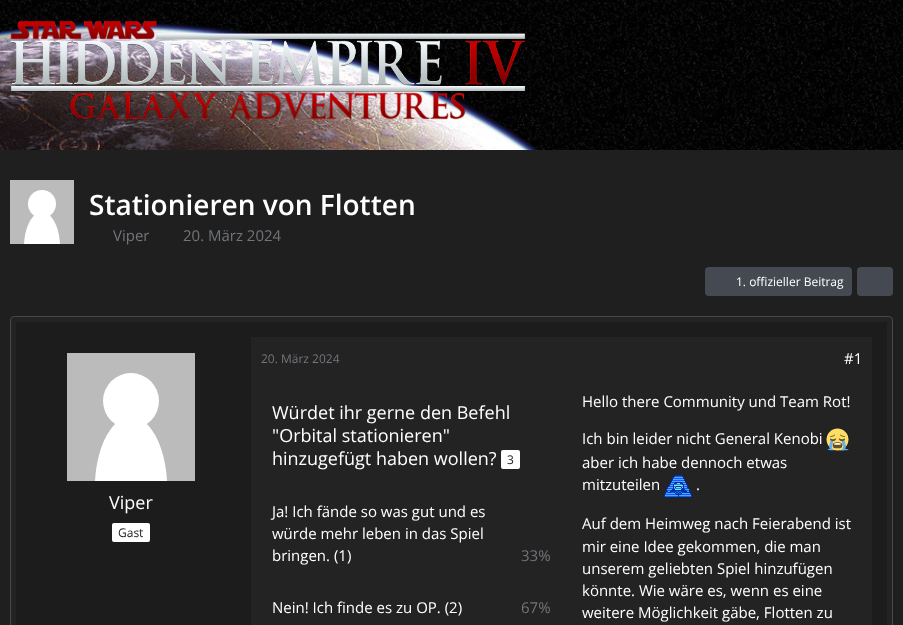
(async () => {
    const canvas = document.querySelector("canvas");
    canvas.width = 903;
    canvas.height = 625;
    const context = canvas.getContext("2d");
    context.miterLimit = 4;
    context.fontKerning = "normal";
    function write(s, x, y, font, color) {
        context.font = font;
        context.fillStyle = color;
        context.fillText(s, x, y);
    }
    function block(x, y, w, h, color) {
        context.fillStyle = color;
        context.fillRect(x, y, w, h);
    }
    function card(x, y, w, h, r, color) {
        context.fillStyle = color;
        context.beginPath();
        context.roundRect(x, y, w, h, r);
        context.fill();
    }
    async function photo(src, x, y, w, h) {
        const img = new Image();
        img.src = src;
        await img.decode();
        context.drawImage(img, x, y, w, h);
    }

    block(0, 0, 903, 625, "rgb(31, 31, 31)");
    await photo("media/1.png", 0, 0, 903, 150);
    await photo("media/2.png", 10, 20, 516, 100);
    block(10, 180, 64, 64, "rgb(187, 187, 187)");
    context.fillStyle = "rgb(255, 255, 255)";
    context.beginPath();
    context.moveTo(24, 244);
    context.bezierCurveTo(25, 226, 32.5, 212, 42, 212);
    context.bezierCurveTo(51.5, 212, 59, 226, 60, 244);
    context.fill();
    context.beginPath();
    context.arc(42, 204, 14, 0, Math.PI * 2);
    context.fill();
    write("Stationieren von Flotten", 89, 215, "600 28px Open Sans", "rgb(255, 255, 255)");
    write("Viper", 113, 241, "15px Open Sans", "rgb(113, 117, 122)");
    write("20. März 2024", 183, 241, "15px Open Sans", "rgb(113, 117, 122)");
    card(705, 267, 147, 29, 4, "rgb(68, 73, 82)");
    write("1. offizieller Beitrag", 736, 286, "12px Open Sans", "rgb(255, 255, 255)");
    card(857, 267, 36, 29, 4, "rgb(68, 73, 82)");
    context.fillStyle = "rgb(35, 35, 35)";
    context.beginPath();
    context.roundRect(10.5, 316.5, 882, 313, 3.5);
    context.fill();
    context.strokeStyle = "rgb(68, 73, 82)";
    context.stroke();
    block(16, 322, 871, 303, "rgb(28, 28, 28)");
    block(67, 353, 128, 128, "rgb(187, 187, 187)");
    context.fillStyle = "rgb(255, 255, 255)";
    context.beginPath();
    context.moveTo(95, 481);
    context.bezierCurveTo(97, 445, 112, 417, 131, 417);
    context.bezierCurveTo(150, 417, 165, 445, 167, 481);
    context.fill();
    context.beginPath();
    context.arc(131, 401, 28, 0, Math.PI * 2);
    context.fill();
    write("Viper", 109, 509, "18px Open Sans", "rgb(255, 255, 255)");
    card(112, 523, 38, 19, 2, "rgb(255, 255, 255)");
    write("Gast", 118, 537, "12px Open Sans", "rgb(35, 35, 35)");
    block(251, 337, 621, 288, "rgb(35, 35, 35)");
    write("20. März 2024", 261, 363, "12px Open Sans", "rgb(113, 117, 122)");
    write("#1", 844, 364, "15px Open Sans", "rgb(255, 255, 255)");
    write("Würdet ihr gerne den Befehl", 272, 419, "18px Open Sans", "rgb(255, 255, 255)");
    write("\"Orbital stationieren\"", 272, 442, "18px Open Sans", "rgb(255, 255, 255)");
    write("hinzugefügt haben wollen?", 272, 465, "18px Open Sans", "rgb(255, 255, 255)");
    card(501, 450, 19, 19, 2, "rgb(255, 255, 255)");
    write("3", 507, 464, "12px Open Sans", "rgb(35, 35, 35)");
    write("Ja! Ich fände so was gut und es", 272, 517, "15px Open Sans", "rgb(255, 255, 255)");
    write("würde mehr leben in das Spiel", 272, 539, "15px Open Sans", "rgb(255, 255, 255)");
    write("bringen. (1)", 272, 561, "15px Open Sans", "rgb(255, 255, 255)");
    write("33%", 521, 561, "15px Open Sans", "rgb(113, 117, 122)");
    write("Nein! Ich finde es zu OP. (2)", 272, 613, "15px Open Sans", "rgb(255, 255, 255)");
    write("67%", 521, 613, "15px Open Sans", "rgb(113, 117, 122)");
    write("Hello there Community und Team Rot!", 582, 407, "15px Open Sans", "rgb(255, 255, 255)");
    write("Ich bin leider nicht General Kenobi", 582, 444, "15px Open Sans", "rgb(255, 255, 255)");
    await photo("media/3.png", 826, 428, 23, 23);
    write("aber ich habe dennoch etwas", 582, 468, "15px Open Sans", "rgb(255, 255, 255)");
    write("mitzuteilen", 582, 490, "15px Open Sans", "rgb(255, 255, 255)");
    await photo("media/4.png", 664, 475, 28, 22);
    write(".", 696, 490, "15px Open Sans", "rgb(255, 255, 255)");
    write("Auf dem Heimweg nach Feierabend ist", 582, 529, "15px Open Sans", "rgb(255, 255, 255)");
    write("mir eine Idee gekommen, die man", 582, 552, "15px Open Sans", "rgb(255, 255, 255)");
    write("unserem geliebten Spiel hinzufügen", 582, 574, "15px Open Sans", "rgb(255, 255, 255)");
    write("könnte. Wie wäre es, wenn es eine", 582, 596, "15px Open Sans", "rgb(255, 255, 255)");
    write("weitere Möglichkeit gäbe, Flotten zu", 582, 618, "15px Open Sans", "rgb(255, 255, 255)");
})();
